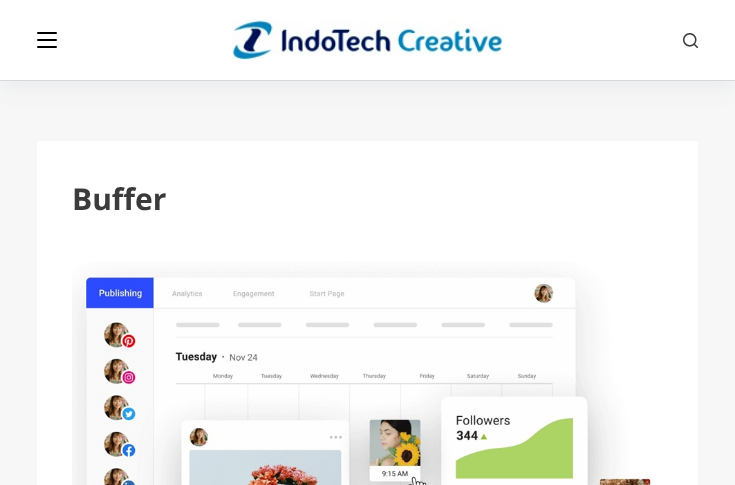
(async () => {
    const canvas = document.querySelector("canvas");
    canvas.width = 735;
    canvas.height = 485;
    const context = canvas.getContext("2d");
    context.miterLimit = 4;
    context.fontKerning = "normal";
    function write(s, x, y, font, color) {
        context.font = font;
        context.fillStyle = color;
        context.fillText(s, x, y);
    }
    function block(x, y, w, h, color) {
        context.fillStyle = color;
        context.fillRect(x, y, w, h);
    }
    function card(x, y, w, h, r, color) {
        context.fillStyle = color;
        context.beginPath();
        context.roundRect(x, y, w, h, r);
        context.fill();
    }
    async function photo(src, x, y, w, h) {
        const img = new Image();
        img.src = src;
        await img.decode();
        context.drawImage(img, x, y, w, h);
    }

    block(0, 0, 735, 485, "rgb(247, 247, 247)");
    context.fillStyle = "rgba(44, 62, 80, 0.05)";
    context.filter = "blur(10px)";
    context.beginPath();
    context.rect(0, 10, 735, 81);
    context.fill();
    context.filter = "none";
    block(0, 0, 735, 80, "rgb(255, 255, 255)");
    block(0, 80, 735, 1, "rgb(213, 216, 220)");
    card(37, 32, 20, 2, 1, "rgb(0, 0, 0)");
    card(37, 39, 20, 2, 1, "rgb(0, 0, 0)");
    card(37, 46, 20, 2, 1, "rgb(0, 0, 0)");
    await photo("media/1.png", 232, 20, 271, 40);
    await photo("media/2.png", 683, 33, 15, 15);
    card(37, 141, 661, 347, 3, "rgb(255, 255, 255)");
    write("Buffer", 72, 210, "bold 30px Open Sans", "rgb(59, 59, 59)");
    await photo("media/3.png", 72, 261, 580, 224);
})();
